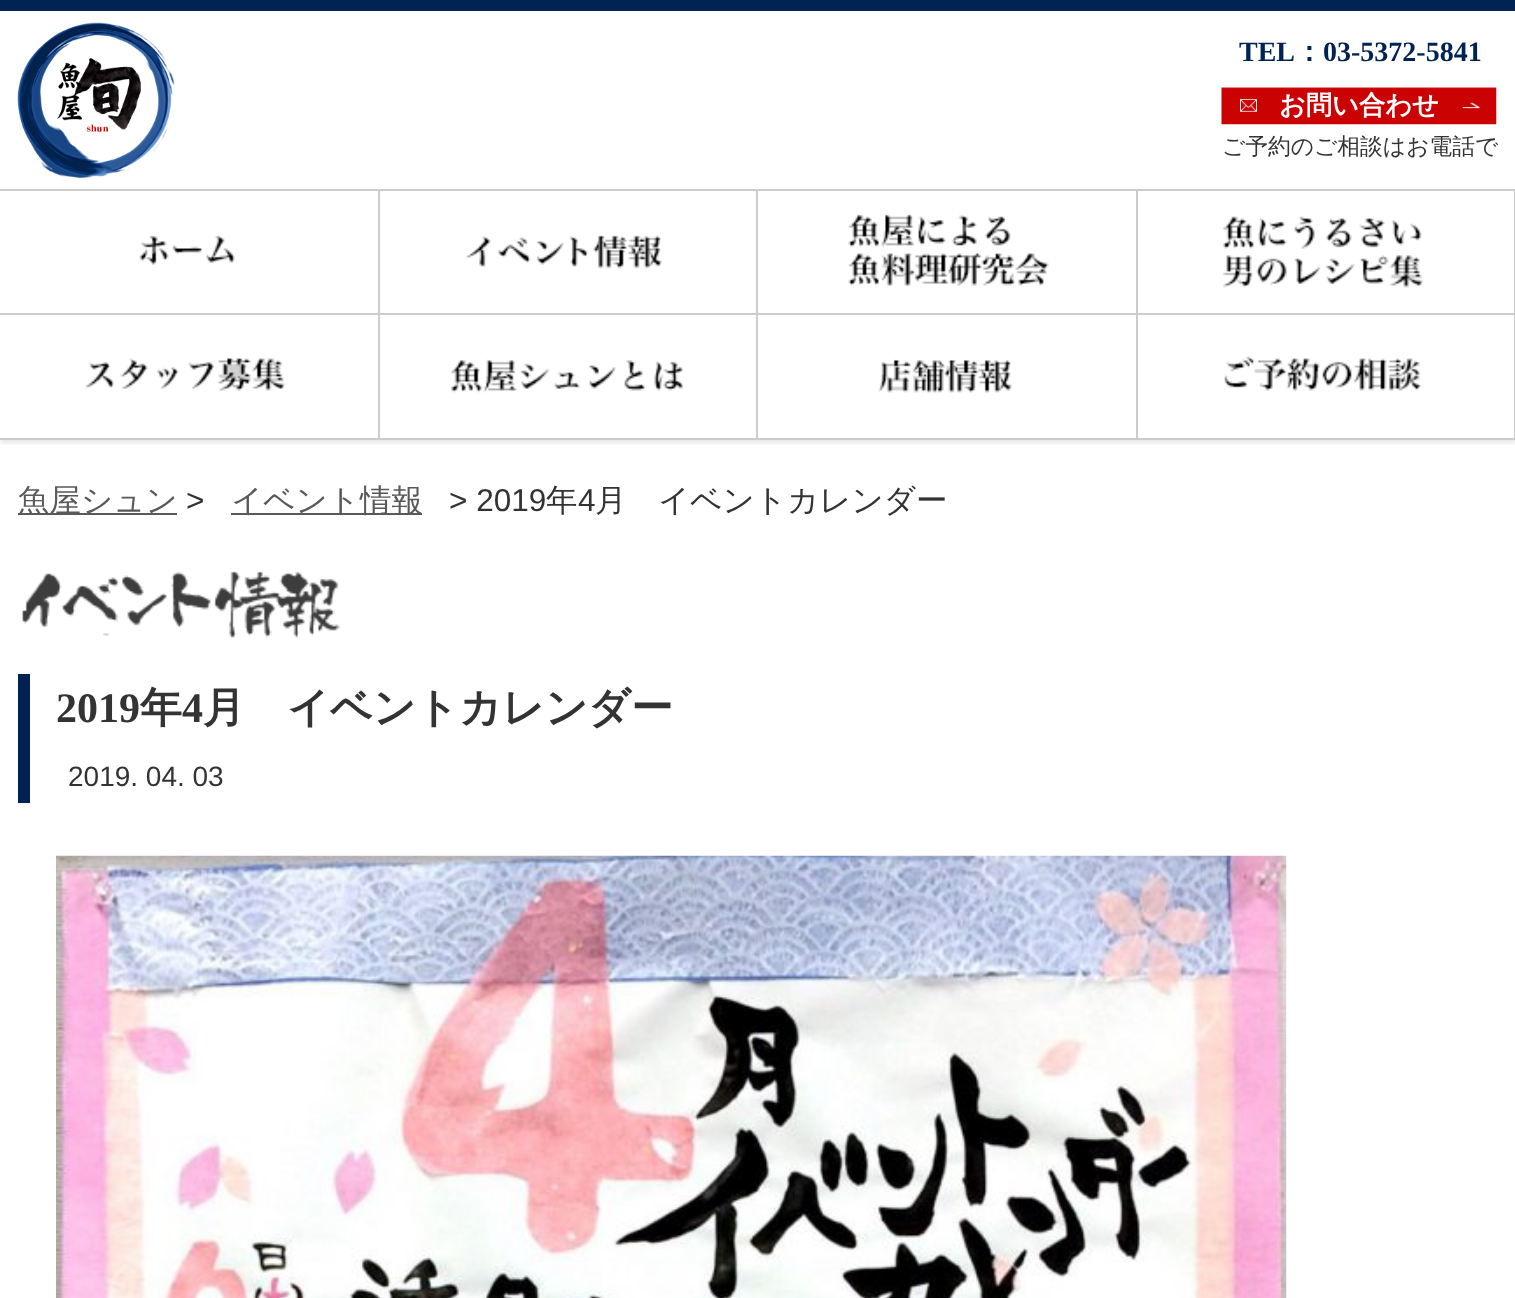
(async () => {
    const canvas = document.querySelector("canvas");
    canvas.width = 1515;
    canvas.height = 1298;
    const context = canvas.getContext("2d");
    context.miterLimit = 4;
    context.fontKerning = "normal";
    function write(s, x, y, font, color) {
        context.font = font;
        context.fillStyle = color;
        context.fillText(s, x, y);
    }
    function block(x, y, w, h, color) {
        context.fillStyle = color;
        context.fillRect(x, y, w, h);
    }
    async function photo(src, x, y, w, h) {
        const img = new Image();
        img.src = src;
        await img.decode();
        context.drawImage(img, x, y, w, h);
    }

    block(0, 0, 1515, 1298, "rgb(255, 255, 255)");
    context.save();
    context.beginPath();
    context.rect(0, 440, 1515, 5);
    context.clip();
    context.fillStyle = "rgba(0, 0, 0, 0.1)";
    context.filter = "blur(2.5px)";
    context.beginPath();
    context.rect(0, 4, 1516, 439);
    context.fill();
    context.filter = "none";
    context.restore();
    block(0, 0, 1515, 11, "rgb(1, 35, 84)");
    await photo("media/1.png", 17, 22, 158, 157);
    write("TEL", 1239, 61, "bold 28px Liberation Serif", "rgb(1, 35, 83)");
    write("：", 1295, 61, "bold 28px WenQuanYi Zen Hei", "rgb(1, 35, 83)");
    write("03-5372-5841", 1323, 61, "bold 28px Liberation Serif", "rgb(1, 35, 83)");
    await photo("media/2.png", 1221, 87, 276, 38);
    write("お問い合わせ", 1279, 114, "bold 26.25px WenQuanYi Zen Hei", "rgb(255, 255, 255)");
    write("ご予約のご相談はお電話で", 1222, 154, "500 22.75px WenQuanYi Zen Hei", "rgb(51, 51, 51)");
    block(0, 189, 1515, 2, "rgb(204, 204, 204)");
    block(378, 189, 2, 126, "rgb(204, 204, 204)");
    block(0, 313, 380, 2, "rgb(204, 204, 204)");
    await photo("media/3.png", 139, 235, 96, 30);
    block(756, 189, 2, 126, "rgb(204, 204, 204)");
    block(380, 313, 378, 2, "rgb(204, 204, 204)");
    await photo("media/4.png", 465, 235, 197, 34);
    block(1136, 189, 2, 126, "rgb(204, 204, 204)");
    block(758, 313, 380, 2, "rgb(204, 204, 204)");
    await photo("media/5.png", 848, 213, 201, 73);
    block(1514, 189, 1, 126, "rgb(204, 204, 204)");
    block(1138, 313, 377, 2, "rgb(204, 204, 204)");
    await photo("media/6.png", 1223, 216, 201, 72);
    block(378, 313, 2, 126, "rgb(204, 204, 204)");
    block(0, 438, 380, 2, "rgb(204, 204, 204)");
    await photo("media/7.png", 85, 357, 201, 34);
    block(756, 313, 2, 126, "rgb(204, 204, 204)");
    block(380, 438, 378, 2, "rgb(204, 204, 204)");
    await photo("media/8.png", 451, 359, 232, 34);
    block(1136, 313, 2, 126, "rgb(204, 204, 204)");
    block(758, 438, 380, 2, "rgb(204, 204, 204)");
    await photo("media/9.png", 878, 359, 134, 34);
    block(1514, 313, 1, 126, "rgb(204, 204, 204)");
    block(1138, 438, 377, 2, "rgb(204, 204, 204)");
    await photo("media/10.png", 1224, 356, 198, 35);
    block(18, 513, 159, 2, "rgb(89, 89, 89)");
    write("魚屋シュン", 18, 511, "500 31.5px WenQuanYi Zen Hei", "rgb(89, 89, 89)");
    write(">", 186, 511, "31.5px Liberation Sans", "rgb(51, 51, 51)");
    block(231, 513, 191, 2, "rgb(89, 89, 89)");
    write("イベント情報", 231, 511, "500 31.5px WenQuanYi Zen Hei", "rgb(89, 89, 89)");
    write("> 2019", 449, 511, "31.5px Liberation Sans", "rgb(51, 51, 51)");
    write("年", 546, 511, "500 31.5px WenQuanYi Zen Hei", "rgb(51, 51, 51)");
    write("4", 578, 511, "31.5px Liberation Sans", "rgb(51, 51, 51)");
    write("月　イベントカレンダー", 595, 511, "500 31.5px WenQuanYi Zen Hei", "rgb(51, 51, 51)");
    await photo("media/11.png", 22, 571, 318, 67);
    block(18, 674, 12, 129, "rgb(1, 35, 83)");
    write("2019", 56, 722, "bold 42px Liberation Serif", "rgb(51, 51, 51)");
    write("年", 140, 722, "bold 42px WenQuanYi Zen Hei", "rgb(51, 51, 51)");
    write("4", 182, 722, "bold 42px Liberation Serif", "rgb(51, 51, 51)");
    write("月　イベントカレンダー", 203, 722, "bold 42px WenQuanYi Zen Hei", "rgb(51, 51, 51)");
    write("2019. 04. 03", 68, 786, "28px Liberation Sans", "rgb(51, 51, 51)");
    await photo("media/12.png", 56, 855, 1231, 443);
})();
